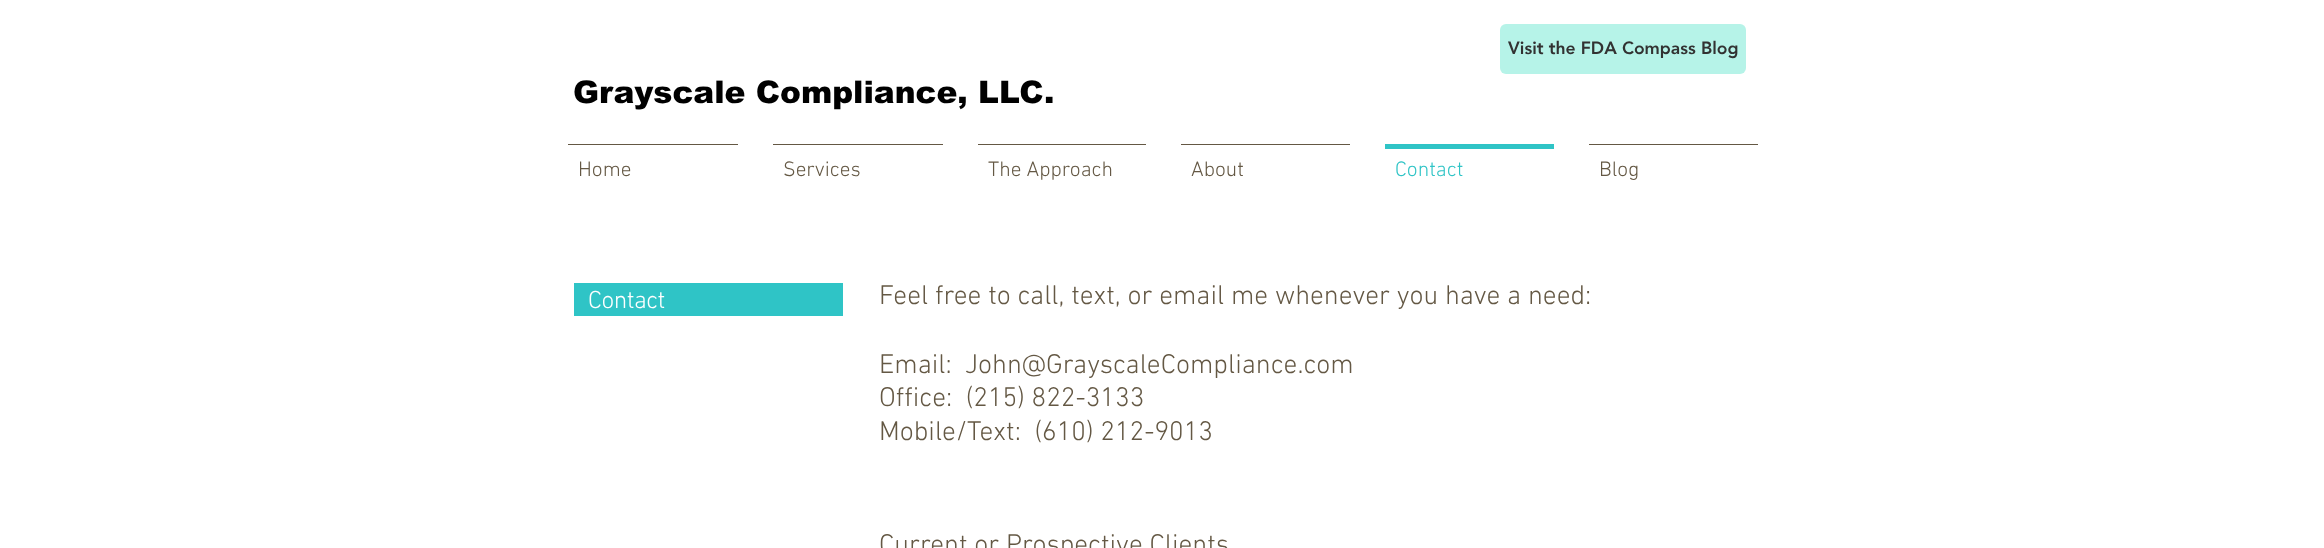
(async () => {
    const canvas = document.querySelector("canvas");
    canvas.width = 2324;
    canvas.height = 548;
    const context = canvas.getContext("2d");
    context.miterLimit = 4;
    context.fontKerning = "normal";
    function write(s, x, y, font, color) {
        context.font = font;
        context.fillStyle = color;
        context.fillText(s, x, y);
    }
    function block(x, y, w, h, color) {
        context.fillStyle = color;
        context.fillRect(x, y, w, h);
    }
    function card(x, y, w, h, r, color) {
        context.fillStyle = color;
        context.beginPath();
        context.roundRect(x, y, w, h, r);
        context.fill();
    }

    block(0, 0, 2324, 548, "rgb(255, 255, 255)");
    card(1500, 24, 246, 50, 6, "rgb(182, 243, 232)");
    write("Visit the FDA Compass Blog", 1508, 54, "900 17.5px 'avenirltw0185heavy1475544'", "rgb(50, 50, 50)");
    write("Grayscale Compliance, LLC.", 573, 103, "900 31.25px arial", "rgb(0, 0, 0)");
    block(568, 144, 170, 1, "rgb(100, 88, 68)");
    write("Home", 578, 176, "300 21.25px 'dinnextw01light'", "rgb(100, 88, 68)");
    block(773, 144, 170, 1, "rgb(100, 88, 68)");
    write("Services", 783, 176, "300 21.25px 'dinnextw01light'", "rgb(100, 88, 68)");
    block(978, 144, 168, 1, "rgb(100, 88, 68)");
    write("The Approach", 988, 176, "300 21.25px 'dinnextw01light'", "rgb(100, 88, 68)");
    block(1181, 144, 169, 1, "rgb(100, 88, 68)");
    write("About", 1191, 176, "300 21.25px 'dinnextw01light'", "rgb(100, 88, 68)");
    block(1385, 144, 169, 5, "rgb(47, 196, 198)");
    write("Contact", 1395, 176, "300 21.25px 'dinnextw01light'", "rgb(47, 196, 198)");
    block(1589, 144, 169, 1, "rgb(100, 88, 68)");
    write("Blog", 1599, 176, "300 21.25px 'dinnextw01light'", "rgb(100, 88, 68)");
    block(574, 283, 269, 33, "rgb(47, 196, 198)");
    context.letterSpacing = "-0.5px";
    write("Contact", 588, 308, "300 25px 'dinnextw01light'", "rgb(255, 255, 255)");
    context.letterSpacing = "0px";
    write("Feel free to call, text, or email me whenever you have a need:", 879, 304, "300 27.5px 'dinnextw01light'", "rgb(100, 88, 68)");
    write("Email:", 879, 373, "300 27.5px 'dinnextw01light'", "rgb(100, 88, 68)");
    write("John@GrayscaleCompliance.com", 965, 373, "300 27.5px 'dinnextw01light'", "rgb(100, 88, 68)");
    write("Office:  (215) 822-3133", 879, 406, "300 27.5px 'dinnextw01light'", "rgb(100, 88, 68)");
    write("Mobile/Text:  (610) 212-9013", 879, 440, "300 27.5px 'dinnextw01light'", "rgb(100, 88, 68)");
    write("Current or Prospective Clients", 879, 553, "300 27.5px 'dinnextw01light'", "rgb(100, 88, 68)");
})();
